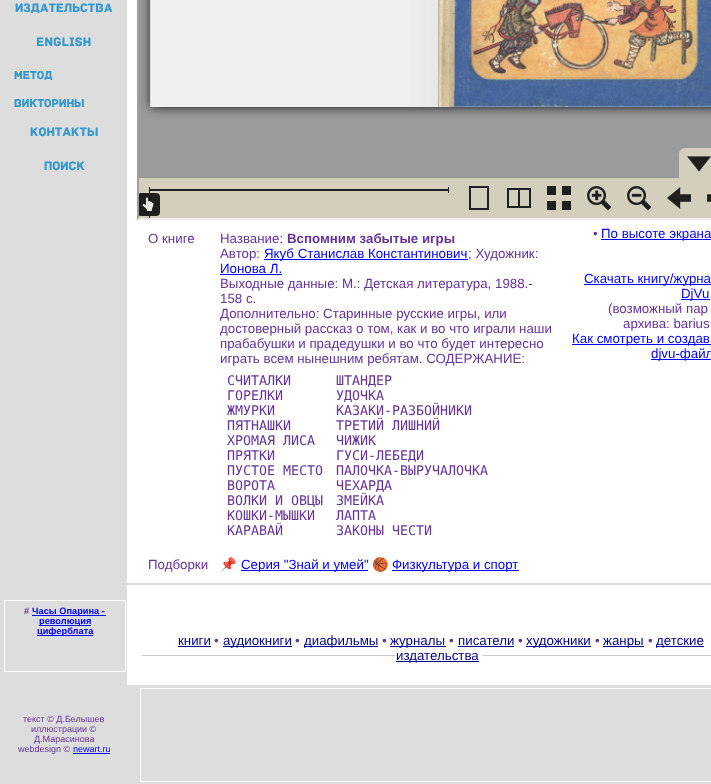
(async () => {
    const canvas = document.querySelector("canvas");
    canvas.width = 711;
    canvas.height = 784;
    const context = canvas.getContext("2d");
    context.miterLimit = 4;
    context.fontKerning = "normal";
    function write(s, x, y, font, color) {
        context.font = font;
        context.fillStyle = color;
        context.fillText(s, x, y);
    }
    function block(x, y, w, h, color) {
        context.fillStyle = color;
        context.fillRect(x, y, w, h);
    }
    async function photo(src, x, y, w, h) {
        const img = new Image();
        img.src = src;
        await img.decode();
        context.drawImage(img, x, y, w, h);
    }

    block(0, 0, 711, 784, "rgb(221, 221, 221)");
    write("ИЗДАТЕЛЬСТВА", 15, 12, "13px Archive", "rgb(51, 153, 204)");
    write("ENGLISH", 36, 46, "13px Archive", "rgb(51, 153, 204)");
    write("МЕТОД", 14, 79, "12px Archive", "rgb(51, 153, 204)");
    write("ВИКТОРИНЫ", 14, 107, "12px Archive", "rgb(51, 153, 204)");
    write("КОНТАКТЫ", 30, 136, "13px Archive", "rgb(51, 153, 204)");
    write("ПОИСК", 44, 170, "13px Archive", "rgb(51, 153, 204)");
    block(127, 0, 584, 583, "rgb(255, 255, 255)");
    context.fillStyle = "rgb(238, 238, 238)";
    context.beginPath();
    context.moveTo(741, 220);
    context.lineTo(137, 220);
    context.lineTo(139, 218);
    context.lineTo(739, 218);
    context.closePath();
    context.fill();
    context.fillStyle = "rgb(159, 159, 159)";
    context.beginPath();
    context.moveTo(137, 220);
    context.lineTo(137, -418);
    context.lineTo(139, -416);
    context.lineTo(139, 218);
    context.closePath();
    context.fill();
    await photo("media/1.png", 139, 0, 572, 218);
    write("О книге", 148, 243, "13.3px Liberation Sans", "rgb(102, 51, 153)");
    write("Название:", 220, 243, "13.3px Liberation Sans", "rgb(102, 51, 153)");
    write("Вспомним забытые игры", 287, 243, "bold 13.3px Liberation Sans", "rgb(102, 51, 153)");
    write("Автор:", 220, 258, "13.3px Liberation Sans", "rgb(102, 51, 153)");
    block(264, 259, 204, 1, "rgb(0, 0, 255)");
    write("Якуб Станислав Константинович", 264, 258, "13.3px Liberation Sans", "rgb(0, 0, 255)");
    write("; Художник:", 468, 258, "13.3px Liberation Sans", "rgb(102, 51, 153)");
    write("Ионова Л.", 220, 273, "13.3px Liberation Sans", "rgb(0, 0, 255)");
    block(220, 274, 62, 1, "rgb(0, 0, 255)");
    write("Выходные данные: М.: Детская литература, 1988.-", 220, 288, "13.3px Liberation Sans", "rgb(102, 51, 153)");
    write("158 с.", 220, 303, "13.3px Liberation Sans", "rgb(102, 51, 153)");
    write("Дополнительно: Старинные русские игры, или", 220, 318, "13.3px Liberation Sans", "rgb(102, 51, 153)");
    write("достоверный рассказ о том, как и во что играли наши", 220, 333, "13.3px Liberation Sans", "rgb(102, 51, 153)");
    write("прабабушки и прадедушки и во что будет интересно", 220, 348, "13.3px Liberation Sans", "rgb(102, 51, 153)");
    write("играть всем нынешним ребятам. СОДЕРЖАНИЕ:", 220, 363, "13.3px Liberation Sans", "rgb(102, 51, 153)");
    write("СЧИТАЛКИ", 227, 385, "13.3px DejaVu Sans Mono", "rgb(102, 51, 153)");
    write("ГОРЕЛКИ", 227, 400, "13.3px DejaVu Sans Mono", "rgb(102, 51, 153)");
    write("ЖМУРКИ", 227, 415, "13.3px DejaVu Sans Mono", "rgb(102, 51, 153)");
    write("ПЯТНАШКИ", 227, 430, "13.3px DejaVu Sans Mono", "rgb(102, 51, 153)");
    write("ХРОМАЯ ЛИСА", 227, 445, "13.3px DejaVu Sans Mono", "rgb(102, 51, 153)");
    write("ПРЯТКИ", 227, 460, "13.3px DejaVu Sans Mono", "rgb(102, 51, 153)");
    write("ПУСТОЕ МЕСТО", 227, 475, "13.3px DejaVu Sans Mono", "rgb(102, 51, 153)");
    write("ВОРОТА", 227, 490, "13.3px DejaVu Sans Mono", "rgb(102, 51, 153)");
    write("ВОЛКИ И ОВЦЫ", 227, 505, "13.3px DejaVu Sans Mono", "rgb(102, 51, 153)");
    write("КОШКИ-МЫШКИ", 227, 520, "13.3px DejaVu Sans Mono", "rgb(102, 51, 153)");
    write("КАРАВАЙ", 227, 535, "13.3px DejaVu Sans Mono", "rgb(102, 51, 153)");
    write("ШТАНДЕР", 336, 385, "13.3px DejaVu Sans Mono", "rgb(102, 51, 153)");
    write("УДОЧКА", 336, 400, "13.3px DejaVu Sans Mono", "rgb(102, 51, 153)");
    write("КАЗАКИ-РАЗБОЙНИКИ", 336, 415, "13.3px DejaVu Sans Mono", "rgb(102, 51, 153)");
    write("ТРЕТИЙ ЛИШНИЙ", 336, 430, "13.3px DejaVu Sans Mono", "rgb(102, 51, 153)");
    write("ЧИЖИК", 336, 445, "13.3px DejaVu Sans Mono", "rgb(102, 51, 153)");
    write("ГУСИ-ЛЕБЕДИ", 336, 460, "13.3px DejaVu Sans Mono", "rgb(102, 51, 153)");
    write("ПАЛОЧКА-ВЫРУЧАЛОЧКА", 336, 475, "13.3px DejaVu Sans Mono", "rgb(102, 51, 153)");
    write("ЧЕХАРДА", 336, 490, "13.3px DejaVu Sans Mono", "rgb(102, 51, 153)");
    write("ЗМЕЙКА", 336, 505, "13.3px DejaVu Sans Mono", "rgb(102, 51, 153)");
    write("ЛАПТА", 336, 520, "13.3px DejaVu Sans Mono", "rgb(102, 51, 153)");
    write("ЗАКОНЫ ЧЕСТИ", 336, 535, "13.3px DejaVu Sans Mono", "rgb(102, 51, 153)");
    write("•", 593, 238, "13.3px Liberation Sans", "rgb(102, 51, 153)");
    block(601, 239, 110, 1, "rgb(0, 0, 255)");
    write("По высоте экрана", 601, 238, "13.3px Liberation Sans", "rgb(0, 0, 255)");
    block(584, 284, 127, 1, "rgb(0, 0, 255)");
    write("Скачать книгу/журна", 584, 283, "13.3px Liberation Sans", "rgb(0, 0, 255)");
    block(681, 299, 29, 1, "rgb(0, 0, 255)");
    write("DjVu", 681, 298, "13.3px Liberation Sans", "rgb(0, 0, 255)");
    write("(возможный пар", 608, 313, "13.3px Liberation Sans", "rgb(102, 51, 153)");
    write("архива: barius", 623, 328, "13.3px Liberation Sans", "rgb(102, 51, 153)");
    block(572, 344, 139, 1, "rgb(0, 0, 255)");
    write("Как смотреть и создав", 572, 343, "13.3px Liberation Sans", "rgb(0, 0, 255)");
    block(651, 359, 60, 1, "rgb(0, 0, 255)");
    write("djvu-файл", 651, 358, "13.3px Liberation Sans", "rgb(0, 0, 255)");
    write("Подборки", 148, 569, "13.3px Liberation Sans", "rgb(102, 51, 153)");
    write("📌", 220, 569, "13.3px Noto Color Emoji", "rgb(102, 51, 153)");
    block(241, 570, 127, 1, "rgb(0, 0, 255)");
    write("Серия \"Знай и умей\"", 241, 569, "13.3px Liberation Sans", "rgb(0, 0, 255)");
    write("🏀", 372, 569, "13.3px Noto Color Emoji", "rgb(102, 51, 153)");
    block(392, 570, 127, 1, "rgb(0, 0, 255)");
    write("Физкультура и спорт", 392, 569, "13.3px Liberation Sans", "rgb(0, 0, 255)");
    context.strokeStyle = "rgb(255, 255, 255)";
    context.strokeRect(4.5, 600.5, 121, 71);
    write("#", 24, 614, "bold 9.25px Liberation Sans", "rgb(102, 51, 153)");
    block(32, 615, 74, 1, "rgb(0, 0, 255)");
    write("Часы Опарина -", 32, 614, "bold 9.25px Liberation Sans", "rgb(0, 0, 255)");
    block(39, 625, 52, 1, "rgb(0, 0, 255)");
    write("революция", 39, 624, "bold 9.25px Liberation Sans", "rgb(0, 0, 255)");
    block(37, 635, 56, 1, "rgb(0, 0, 255)");
    write("циферблата", 37, 634, "bold 9.25px Liberation Sans", "rgb(0, 0, 255)");
    block(127, 585, 584, 100, "rgb(255, 255, 255)");
    write("книги", 178, 645, "13.3px Liberation Sans", "rgb(0, 0, 136)");
    block(178, 646, 33, 1, "rgb(0, 0, 136)");
    write("•", 214, 645, "13.3px Liberation Sans", "rgb(102, 51, 153)");
    block(223, 646, 69, 1, "rgb(0, 0, 136)");
    write("аудиокниги", 223, 645, "13.3px Liberation Sans", "rgb(0, 0, 136)");
    write("•", 295, 645, "13.3px Liberation Sans", "rgb(102, 51, 153)");
    block(304, 646, 74, 1, "rgb(0, 0, 136)");
    write("диафильмы", 304, 645, "13.3px Liberation Sans", "rgb(0, 0, 136)");
    write("•", 382, 645, "13.3px Liberation Sans", "rgb(102, 51, 153)");
    block(390, 646, 56, 1, "rgb(0, 0, 136)");
    write("журналы", 390, 645, "13.3px Liberation Sans", "rgb(0, 0, 136)");
    write("•", 449, 645, "13.3px Liberation Sans", "rgb(102, 51, 153)");
    write("писатели", 458, 645, "13.3px Liberation Sans", "rgb(0, 0, 136)");
    block(458, 646, 56, 1, "rgb(0, 0, 136)");
    write("•", 518, 645, "13.3px Liberation Sans", "rgb(102, 51, 153)");
    block(526, 646, 65, 1, "rgb(0, 0, 136)");
    write("художники", 526, 645, "13.3px Liberation Sans", "rgb(0, 0, 136)");
    write("•", 595, 645, "13.3px Liberation Sans", "rgb(102, 51, 153)");
    block(603, 646, 41, 1, "rgb(0, 0, 136)");
    write("жанры", 603, 645, "13.3px Liberation Sans", "rgb(0, 0, 136)");
    write("•", 648, 645, "13.3px Liberation Sans", "rgb(102, 51, 153)");
    block(656, 646, 48, 1, "rgb(0, 0, 136)");
    write("детские", 656, 645, "13.3px Liberation Sans", "rgb(0, 0, 136)");
    block(142, 655, 569, 1, "rgb(204, 204, 204)");
    block(396, 655, 83, 1, "rgb(255, 255, 255)");
    block(396, 661, 83, 1, "rgb(0, 0, 136)");
    write("издательства", 396, 660, "13.3px Liberation Sans", "rgb(0, 0, 136)");
    block(479, 648, 3, 15, "rgb(255, 255, 255)");
    write("текст © Д.Белышев", 23, 722, "9px Liberation Sans", "rgb(102, 51, 153)");
    write("иллюстрации ©", 31, 732, "9px Liberation Sans", "rgb(102, 51, 153)");
    write("Д.Марасинова", 34, 742, "9px Liberation Sans", "rgb(102, 51, 153)");
    write("webdesign ©", 18, 752, "9px Liberation Sans", "rgb(102, 51, 153)");
    write("newart.ru", 73, 752, "9px Liberation Sans", "rgb(0, 0, 255)");
    block(73, 753, 37, 1, "rgb(0, 0, 255)");
    context.strokeRect(140.5, 688.5, 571, 93);
})();
